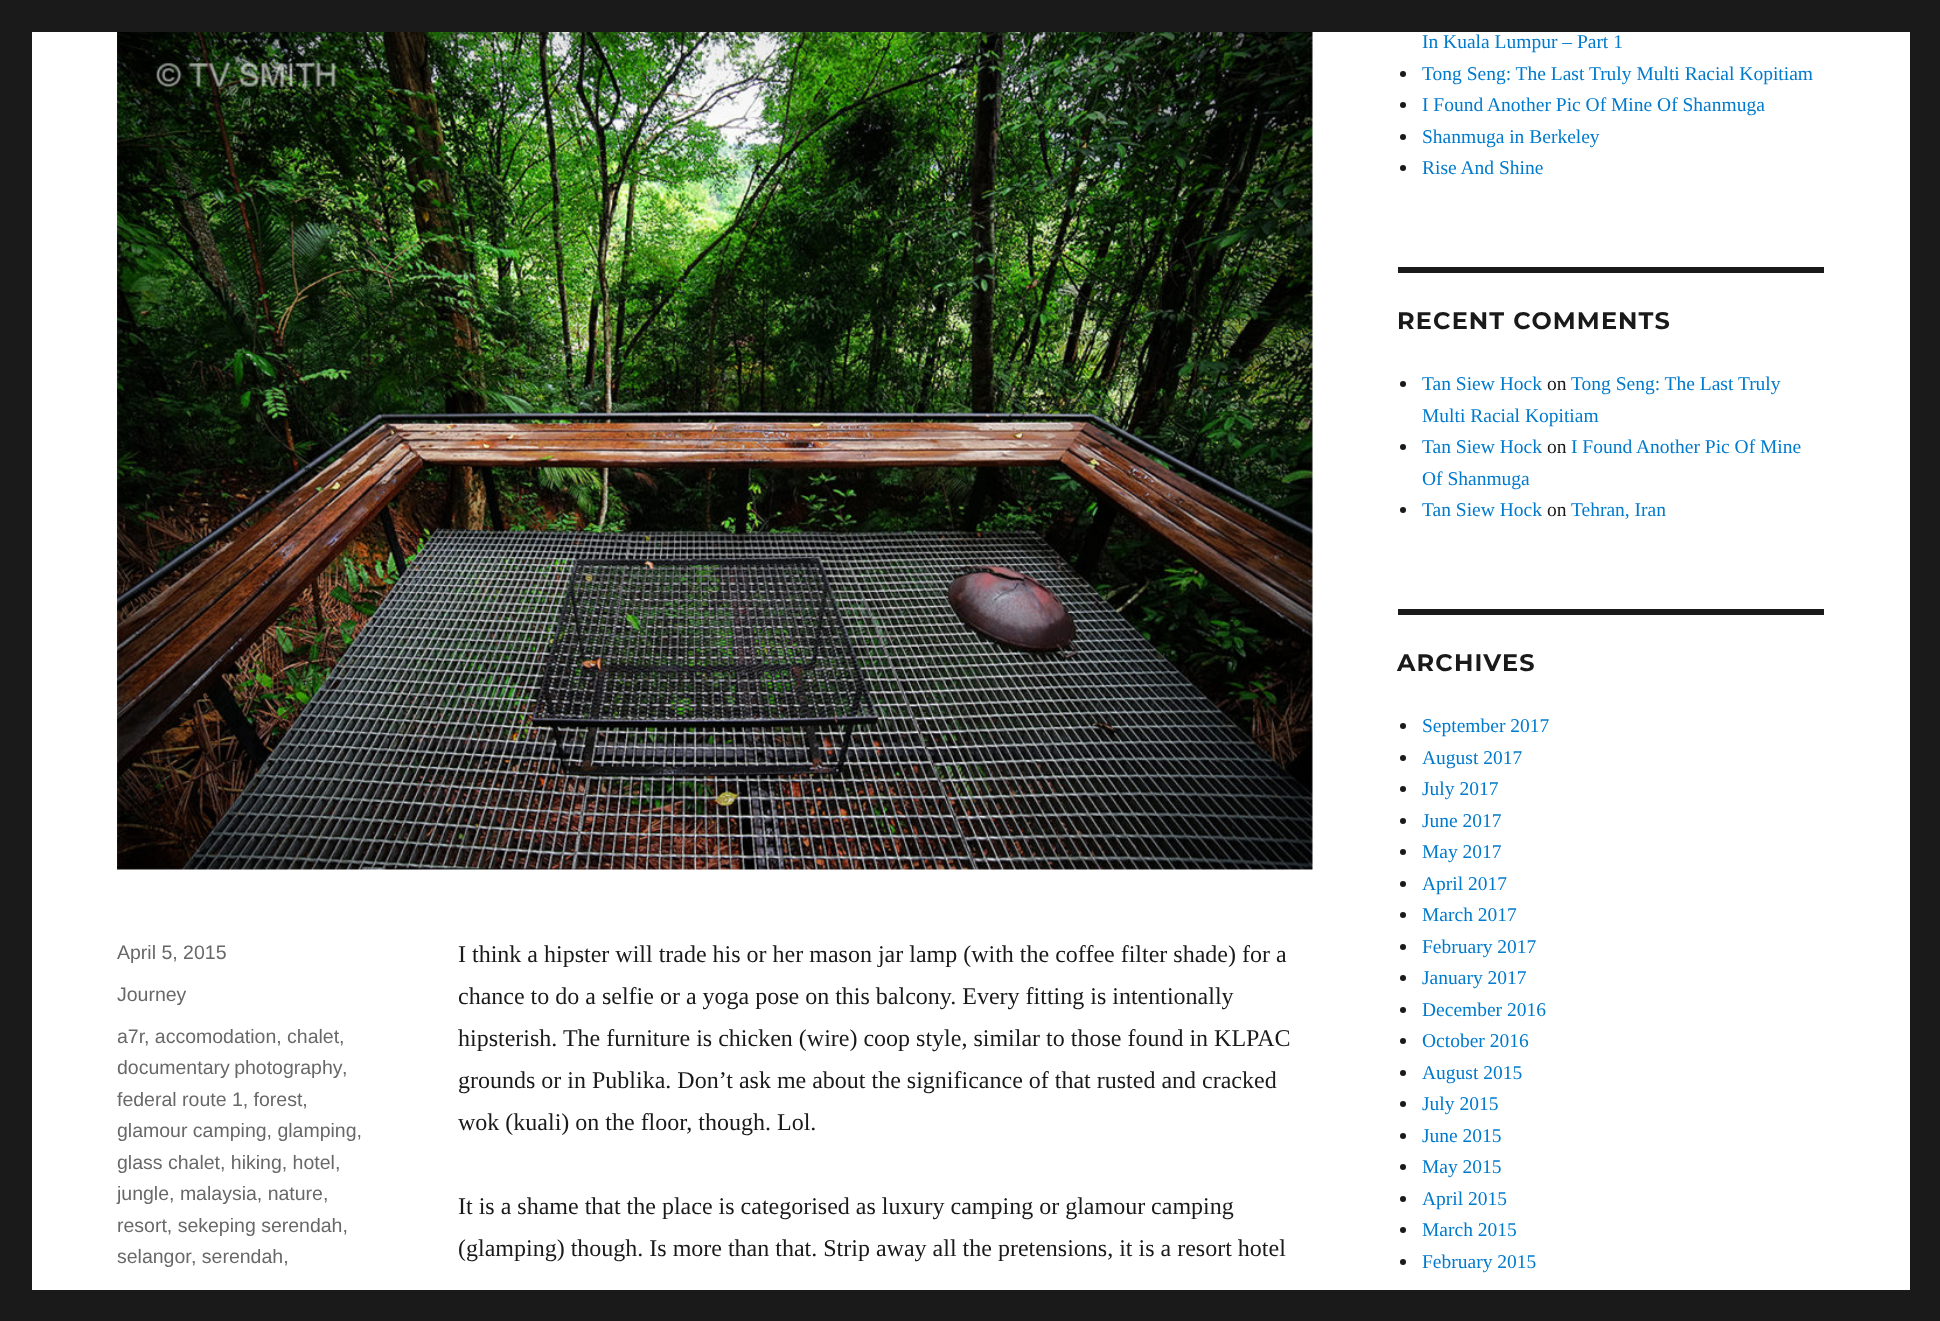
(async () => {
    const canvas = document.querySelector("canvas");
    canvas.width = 1940;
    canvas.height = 1321;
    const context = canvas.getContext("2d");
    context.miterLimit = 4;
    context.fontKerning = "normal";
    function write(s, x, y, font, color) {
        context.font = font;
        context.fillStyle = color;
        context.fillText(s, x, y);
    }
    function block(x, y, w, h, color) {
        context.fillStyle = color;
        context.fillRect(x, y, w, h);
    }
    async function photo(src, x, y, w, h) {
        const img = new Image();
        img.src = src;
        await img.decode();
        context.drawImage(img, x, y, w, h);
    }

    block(0, 0, 1940, 1321, "rgb(26, 26, 26)");
    block(32, 32, 1878, 1258, "rgb(255, 255, 255)");
    await photo("media/1.png", 117, 32, 1196, 838);
    write("April 5, 2015", 117, 959, "19.5px Liberation Sans", "rgb(104, 104, 104)");
    write("Journey", 117, 1001, "19.5px Liberation Sans", "rgb(104, 104, 104)");
    write("a7r", 117, 1043, "19.5px Liberation Sans", "rgb(104, 104, 104)");
    write(", accomodation, chalet,", 144, 1043, "19.5px Liberation Sans", "rgb(104, 104, 104)");
    context.wordSpacing = "-1px";
    write("documentary photography", 117, 1074, "19.5px Liberation Sans", "rgb(104, 104, 104)");
    context.wordSpacing = "0px";
    write(",", 342, 1074, "19.5px Liberation Sans", "rgb(104, 104, 104)");
    write("federal route 1, forest,", 117, 1106, "19.5px Liberation Sans", "rgb(104, 104, 104)");
    write("glamour camping, glamping,", 117, 1137, "19.5px Liberation Sans", "rgb(104, 104, 104)");
    write("glass chalet, hiking, hotel,", 117, 1169, "19.5px Liberation Sans", "rgb(104, 104, 104)");
    write("jungle, malaysia, nature,", 117, 1200, "19.5px Liberation Sans", "rgb(104, 104, 104)");
    write("resort, sekeping serendah,", 117, 1232, "19.5px Liberation Sans", "rgb(104, 104, 104)");
    write("selangor", 117, 1263, "19.5px Liberation Sans", "rgb(104, 104, 104)");
    write(", serendah,", 191, 1263, "19.5px Liberation Sans", "rgb(104, 104, 104)");
    write("I think a hipster will trade his or her mason jar lamp (with the coffee filter shade) for a", 458, 962, "24px Liberation Serif", "rgb(26, 26, 26)");
    write("chance to do a selfie or a yoga pose on this balcony. Every fitting is intentionally", 458, 1004, "24px Liberation Serif", "rgb(26, 26, 26)");
    write("hipsterish. The furniture is chicken (wire) coop style, similar to those found in KLPAC", 458, 1046, "24px Liberation Serif", "rgb(26, 26, 26)");
    write("grounds or in Publika. Don’t ask me about the significance of that rusted and cracked", 458, 1088, "24px Liberation Serif", "rgb(26, 26, 26)");
    write("wok (kuali) on the floor, though. Lol.", 458, 1130, "24px Liberation Serif", "rgb(26, 26, 26)");
    write("It is a shame that the place is categorised as luxury camping or glamour camping", 458, 1214, "24px Liberation Serif", "rgb(26, 26, 26)");
    write("(glamping) though. Is more than that. Strip away all the pretensions, it is a resort hotel", 458, 1256, "24px Liberation Serif", "rgb(26, 26, 26)");
    write("In Kuala Lumpur – Part 1", 1422, 48, "19.5px Liberation Serif", "rgb(0, 122, 204)");
    context.fillStyle = "rgb(26, 26, 26)";
    context.beginPath();
    context.arc(1403, 74, 3, 0, Math.PI * 2);
    context.fill();
    write("Tong Seng: The Last Truly Multi Racial Kopitiam", 1422, 80, "19.5px Liberation Serif", "rgb(0, 122, 204)");
    context.fillStyle = "rgb(26, 26, 26)";
    context.beginPath();
    context.arc(1403, 105, 3, 0, Math.PI * 2);
    context.fill();
    write("I Found Another Pic Of Mine Of Shanmuga", 1422, 111, "19.5px Liberation Serif", "rgb(0, 122, 204)");
    context.fillStyle = "rgb(26, 26, 26)";
    context.beginPath();
    context.arc(1403, 137, 3, 0, Math.PI * 2);
    context.fill();
    write("Shanmuga in Berkeley", 1422, 143, "19.5px Liberation Serif", "rgb(0, 122, 204)");
    context.fillStyle = "rgb(26, 26, 26)";
    context.beginPath();
    context.arc(1403, 168, 3, 0, Math.PI * 2);
    context.fill();
    write("Rise And Shine", 1422, 174, "19.5px Liberation Serif", "rgb(0, 122, 204)");
    block(1398, 267, 426, 6, "rgb(26, 26, 26)");
    context.letterSpacing = "1.1px";
    write("RECENT COMMENTS", 1397, 329, "100 24px Montserrat", "rgb(26, 26, 26)");
    context.beginPath();
    context.arc(1403, 384, 3, 0, Math.PI * 2);
    context.fill();
    context.letterSpacing = "0px";
    write("Tan Siew Hock", 1422, 390, "19.5px Liberation Serif", "rgb(0, 122, 204)");
    write("on", 1547, 390, "19.5px Liberation Serif", "rgb(26, 26, 26)");
    write("Tong Seng: The Last Truly", 1571, 390, "19.5px Liberation Serif", "rgb(0, 122, 204)");
    write("Multi Racial Kopitiam", 1422, 422, "19.5px Liberation Serif", "rgb(0, 122, 204)");
    context.fillStyle = "rgb(26, 26, 26)";
    context.beginPath();
    context.arc(1403, 447, 3, 0, Math.PI * 2);
    context.fill();
    write("Tan Siew Hock", 1422, 453, "19.5px Liberation Serif", "rgb(0, 122, 204)");
    write("on", 1547, 453, "19.5px Liberation Serif", "rgb(26, 26, 26)");
    write("I Found Another Pic Of Mine", 1571, 453, "19.5px Liberation Serif", "rgb(0, 122, 204)");
    write("Of Shanmuga", 1422, 485, "19.5px Liberation Serif", "rgb(0, 122, 204)");
    context.fillStyle = "rgb(26, 26, 26)";
    context.beginPath();
    context.arc(1403, 510, 3, 0, Math.PI * 2);
    context.fill();
    write("Tan Siew Hock", 1422, 516, "19.5px Liberation Serif", "rgb(0, 122, 204)");
    write("on", 1547, 516, "19.5px Liberation Serif", "rgb(26, 26, 26)");
    write("Tehran, Iran", 1571, 516, "19.5px Liberation Serif", "rgb(0, 122, 204)");
    block(1398, 609, 426, 6, "rgb(26, 26, 26)");
    context.letterSpacing = "1.1px";
    write("ARCHIVES", 1397, 671, "100 24px Montserrat", "rgb(26, 26, 26)");
    context.beginPath();
    context.arc(1403, 726, 3, 0, Math.PI * 2);
    context.fill();
    context.letterSpacing = "0px";
    write("September 2017", 1422, 732, "19.5px Liberation Serif", "rgb(0, 122, 204)");
    context.fillStyle = "rgb(26, 26, 26)";
    context.beginPath();
    context.arc(1403, 758, 3, 0, Math.PI * 2);
    context.fill();
    write("August 2017", 1422, 764, "19.5px Liberation Serif", "rgb(0, 122, 204)");
    context.fillStyle = "rgb(26, 26, 26)";
    context.beginPath();
    context.arc(1403, 789, 3, 0, Math.PI * 2);
    context.fill();
    write("July 2017", 1422, 795, "19.5px Liberation Serif", "rgb(0, 122, 204)");
    context.fillStyle = "rgb(26, 26, 26)";
    context.beginPath();
    context.arc(1403, 821, 3, 0, Math.PI * 2);
    context.fill();
    write("June 2017", 1422, 827, "19.5px Liberation Serif", "rgb(0, 122, 204)");
    context.fillStyle = "rgb(26, 26, 26)";
    context.beginPath();
    context.arc(1403, 852, 3, 0, Math.PI * 2);
    context.fill();
    write("May 2017", 1422, 858, "19.5px Liberation Serif", "rgb(0, 122, 204)");
    context.fillStyle = "rgb(26, 26, 26)";
    context.beginPath();
    context.arc(1403, 884, 3, 0, Math.PI * 2);
    context.fill();
    write("April 2017", 1422, 890, "19.5px Liberation Serif", "rgb(0, 122, 204)");
    context.fillStyle = "rgb(26, 26, 26)";
    context.beginPath();
    context.arc(1403, 915, 3, 0, Math.PI * 2);
    context.fill();
    write("March 2017", 1422, 921, "19.5px Liberation Serif", "rgb(0, 122, 204)");
    context.fillStyle = "rgb(26, 26, 26)";
    context.beginPath();
    context.arc(1403, 947, 3, 0, Math.PI * 2);
    context.fill();
    write("February 2017", 1422, 953, "19.5px Liberation Serif", "rgb(0, 122, 204)");
    context.fillStyle = "rgb(26, 26, 26)";
    context.beginPath();
    context.arc(1403, 978, 3, 0, Math.PI * 2);
    context.fill();
    write("January 2017", 1422, 984, "19.5px Liberation Serif", "rgb(0, 122, 204)");
    context.fillStyle = "rgb(26, 26, 26)";
    context.beginPath();
    context.arc(1403, 1010, 3, 0, Math.PI * 2);
    context.fill();
    write("December 2016", 1422, 1016, "19.5px Liberation Serif", "rgb(0, 122, 204)");
    context.fillStyle = "rgb(26, 26, 26)";
    context.beginPath();
    context.arc(1403, 1041, 3, 0, Math.PI * 2);
    context.fill();
    write("October 2016", 1422, 1047, "19.5px Liberation Serif", "rgb(0, 122, 204)");
    context.fillStyle = "rgb(26, 26, 26)";
    context.beginPath();
    context.arc(1403, 1073, 3, 0, Math.PI * 2);
    context.fill();
    write("August 2015", 1422, 1079, "19.5px Liberation Serif", "rgb(0, 122, 204)");
    context.fillStyle = "rgb(26, 26, 26)";
    context.beginPath();
    context.arc(1403, 1104, 3, 0, Math.PI * 2);
    context.fill();
    write("July 2015", 1422, 1110, "19.5px Liberation Serif", "rgb(0, 122, 204)");
    context.fillStyle = "rgb(26, 26, 26)";
    context.beginPath();
    context.arc(1403, 1136, 3, 0, Math.PI * 2);
    context.fill();
    write("June 2015", 1422, 1142, "19.5px Liberation Serif", "rgb(0, 122, 204)");
    context.fillStyle = "rgb(26, 26, 26)";
    context.beginPath();
    context.arc(1403, 1167, 3, 0, Math.PI * 2);
    context.fill();
    write("May 2015", 1422, 1173, "19.5px Liberation Serif", "rgb(0, 122, 204)");
    context.fillStyle = "rgb(26, 26, 26)";
    context.beginPath();
    context.arc(1403, 1199, 3, 0, Math.PI * 2);
    context.fill();
    write("April 2015", 1422, 1205, "19.5px Liberation Serif", "rgb(0, 122, 204)");
    context.fillStyle = "rgb(26, 26, 26)";
    context.beginPath();
    context.arc(1403, 1230, 3, 0, Math.PI * 2);
    context.fill();
    write("March 2015", 1422, 1236, "19.5px Liberation Serif", "rgb(0, 122, 204)");
    context.fillStyle = "rgb(26, 26, 26)";
    context.beginPath();
    context.arc(1403, 1262, 3, 0, Math.PI * 2);
    context.fill();
    write("February 2015", 1422, 1268, "19.5px Liberation Serif", "rgb(0, 122, 204)");
})();
